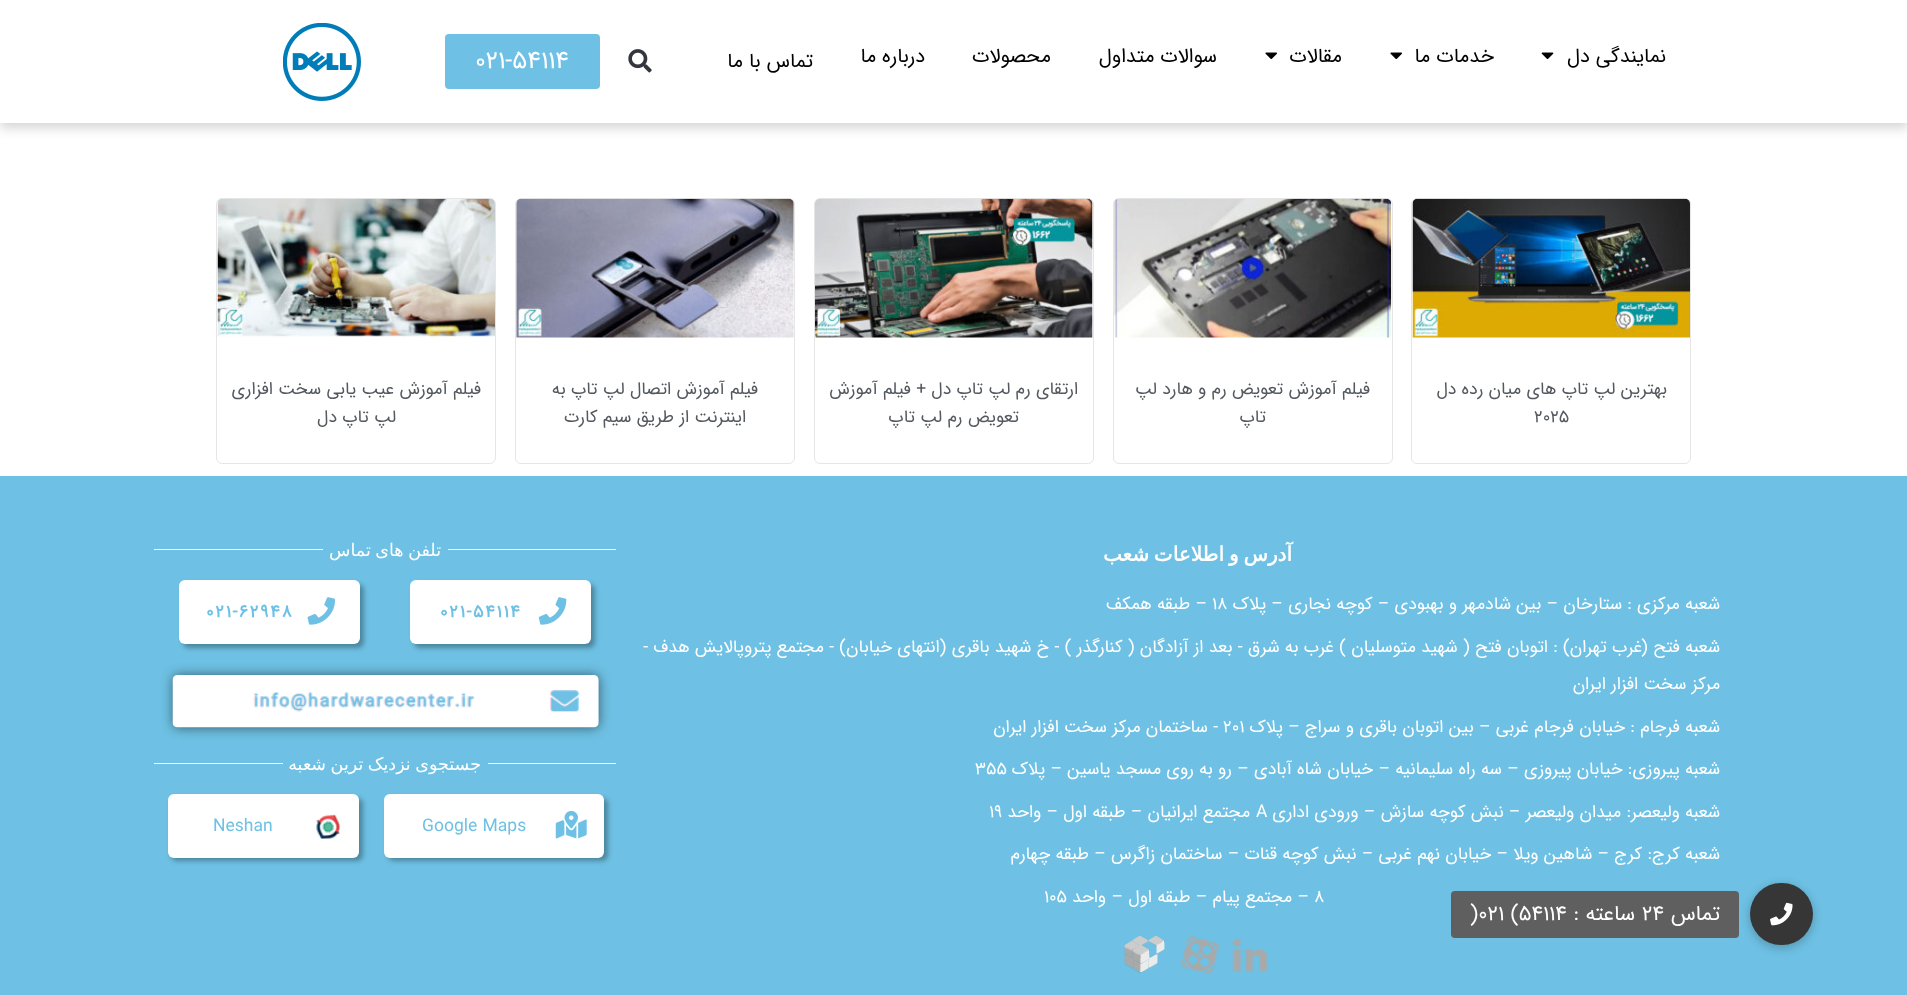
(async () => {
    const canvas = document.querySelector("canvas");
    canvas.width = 1907;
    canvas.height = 995;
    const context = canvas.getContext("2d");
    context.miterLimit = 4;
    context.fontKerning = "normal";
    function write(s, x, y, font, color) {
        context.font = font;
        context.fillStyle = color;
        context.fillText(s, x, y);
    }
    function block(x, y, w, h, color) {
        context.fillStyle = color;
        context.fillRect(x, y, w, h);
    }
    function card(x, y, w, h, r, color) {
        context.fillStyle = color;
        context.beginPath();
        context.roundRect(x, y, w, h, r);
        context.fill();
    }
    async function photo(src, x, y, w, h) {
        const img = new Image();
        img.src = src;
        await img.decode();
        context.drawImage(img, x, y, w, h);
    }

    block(0, 0, 1907, 995, "rgb(255, 255, 255)");
    context.fillStyle = "rgba(0, 0, 0, 0.17)";
    context.filter = "blur(6px)";
    context.beginPath();
    context.rect(0, 5, 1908, 123);
    context.fill();
    context.filter = "none";
    block(0, 0, 1907, 123, "rgb(255, 255, 255)");
    context.direction = "rtl";
    write("نمایندگی دل", 1666, 62, "20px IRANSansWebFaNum", "rgb(0, 0, 0)");
    await photo("media/1.png", 1541, 52, 13, 8);
    write("خدمات ما", 1494, 62, "20px IRANSansWebFaNum", "rgb(0, 0, 0)");
    await photo("media/2.png", 1390, 52, 12, 8);
    write("مقالات", 1342, 62, "20px IRANSansWebFaNum", "rgb(0, 0, 0)");
    await photo("media/2.png", 1265, 52, 12, 8);
    write("سوالات متداول", 1217, 62, "20px IRANSansWebFaNum", "rgb(0, 0, 0)");
    write("محصولات", 1051, 62, "20px IRANSansWebFaNum", "rgb(0, 0, 0)");
    write("درباره ما", 925, 62, "20px IRANSansWebFaNum", "rgb(0, 0, 0)");
    write("تماس با ما", 813, 67, "20px IRANSansWebFaNum", "rgb(0, 0, 0)");
    await photo("media/3.png", 628, 49, 24, 24);
    card(445, 34, 155, 55, 4, "rgb(110, 193, 228)");
    context.direction = "ltr";
    write("021-54114", 475, 68, "25px IRANSansWebFaNum", "rgb(255, 255, 255)");
    await photo("media/4.png", 283, 23, 78, 78);
    context.beginPath();
    context.roundRect(1411.5, 198.5, 279, 265, 5.5);
    context.strokeStyle = "rgb(230, 230, 230)";
    context.stroke();
    await photo("media/5.png", 1412, 198, 278, 140);
    context.direction = "rtl";
    write("بهترین لپ تاپ های میان رده دل", 1667, 394, "17.5px IRANSansWebFaNum", "rgb(84, 89, 95)");
    context.direction = "ltr";
    write("2025", 1534, 422, "17.5px IRANSansWebFaNum", "rgb(84, 89, 95)");
    context.beginPath();
    context.roundRect(1113.5, 198.5, 279, 265, 5.5);
    context.stroke();
    await photo("media/6.png", 1114, 198, 278, 140);
    context.direction = "rtl";
    write("فیلم آموزش تعویض رم و هارد لپ", 1370, 394, "17.5px IRANSansWebFaNum", "rgb(84, 89, 95)");
    write("تاپ", 1266, 422, "17.5px IRANSansWebFaNum", "rgb(84, 89, 95)");
    context.beginPath();
    context.roundRect(814.5, 198.5, 279, 265, 5.5);
    context.stroke();
    await photo("media/7.png", 815, 198, 278, 140);
    write("ارتقای رم لپ تاپ دل + فیلم آموزش", 1078, 394, "17.5px IRANSansWebFaNum", "rgb(84, 89, 95)");
    write("تعویض رم لپ تاپ", 1019, 422, "17.5px IRANSansWebFaNum", "rgb(84, 89, 95)");
    context.beginPath();
    context.roundRect(515.5, 198.5, 279, 265, 5.5);
    context.stroke();
    await photo("media/8.png", 516, 198, 278, 140);
    write("فیلم آموزش اتصال لپ تاپ به", 758, 394, "17.5px IRANSansWebFaNum", "rgb(84, 89, 95)");
    write("اینترنت از طریق سیم کارت", 746, 422, "17.5px IRANSansWebFaNum", "rgb(84, 89, 95)");
    context.beginPath();
    context.roundRect(216.5, 198.5, 279, 265, 5.5);
    context.stroke();
    await photo("media/9.png", 217, 198, 278, 140);
    write("فیلم آموزش عیب یابی سخت افزاری", 481, 394, "17.5px IRANSansWebFaNum", "rgb(84, 89, 95)");
    write("لپ تاپ دل", 396, 422, "17.5px IRANSansWebFaNum", "rgb(84, 89, 95)");
    block(0, 476, 1907, 519, "rgb(110, 193, 228)");
    context.wordSpacing = "-1.5px";
    write("آدرس و اطلاعات شعب", 1292, 561, "bold 20px DejaVu Sans", "rgb(255, 255, 255)");
    context.wordSpacing = "0px";
    write("شعبه مرکزی :", 1720, 609, "17.5px IRANSansWebFaNum", "rgb(255, 255, 255)");
    write("ستارخان – بین شادمهر و بهبودی – کوچه نجاری – پلاک", 1622, 609, "17.5px IRANSansWebFaNum", "rgb(255, 255, 255)");
    context.direction = "ltr";
    write("۱۸", 1212, 609, "17.5px IRANSansWebFaNum", "rgb(255, 255, 255)");
    context.direction = "rtl";
    write("– طبقه همکف", 1207, 609, "17.5px IRANSansWebFaNum", "rgb(255, 255, 255)");
    write("شعبه فتح (غرب تهران) : اتوبان فتح ( شهید متوسلیان ) غرب به شرق - بعد از آزادگان ( کنارگذر ) - خ شهید باقری (انتهای خیابان) - مجتمع پتروپالایش هدف -", 1720, 652, "17.5px IRANSansWebFaNum", "rgb(255, 255, 255)");
    write("مرکز سخت افزار ایران", 1720, 689, "17.5px IRANSansWebFaNum", "rgb(255, 255, 255)");
    write("شعبه فرجام : خیابان فرجام غربی – بین اتوبان باقری و سراج – پلاک", 1720, 732, "17.5px IRANSansWebFaNum", "rgb(255, 255, 255)");
    context.direction = "ltr";
    write("۲۰۱", 1223, 732, "17.5px IRANSansWebFaNum", "rgb(255, 255, 255)");
    context.direction = "rtl";
    write("- ساختمان مرکز سخت افزار ایران", 1218, 732, "17.5px IRANSansWebFaNum", "rgb(255, 255, 255)");
    write("شعبه پیروزی: خیابان پیروزی – سه راه سلیمانیه – خیابان شاه آبادی – رو به روی مسجد یاسین – پلاک", 1720, 774, "17.5px IRANSansWebFaNum", "rgb(255, 255, 255)");
    context.direction = "ltr";
    write("۳۵۵", 975, 774, "17.5px IRANSansWebFaNum", "rgb(255, 255, 255)");
    context.direction = "rtl";
    write("شعبه ولیعصر:", 1720, 817, "17.5px IRANSansWebFaNum", "rgb(255, 255, 255)");
    write("میدان ولیعصر – نبش کوچه سازش – ورودی اداری", 1621, 817, "17.5px IRANSansWebFaNum", "rgb(255, 255, 255)");
    context.direction = "ltr";
    write("A", 1256, 817, "17.5px IRANSansWebFaNum", "rgb(255, 255, 255)");
    context.direction = "rtl";
    write("مجتمع ایرانیان – طبقه اول – واحد", 1250, 817, "17.5px IRANSansWebFaNum", "rgb(255, 255, 255)");
    context.direction = "ltr";
    write("۱۹", 989, 817, "17.5px IRANSansWebFaNum", "rgb(255, 255, 255)");
    context.direction = "rtl";
    write("شعبه کرج:", 1720, 859, "17.5px IRANSansWebFaNum", "rgb(255, 255, 255)");
    write("کرج – شاهین ویلا – خیابان نهم غربی – نبش کوچه قنات – ساختمان زاگرس – طبقه چهارم", 1642, 859, "17.5px IRANSansWebFaNum", "rgb(255, 255, 255)");
    context.direction = "ltr";
    write("8", 1314, 902, "17.5px IRANSansWebFaNum", "rgb(255, 255, 255)");
    context.direction = "rtl";
    write("– مجتمع پیام – طبقه اول –", 1309, 902, "17.5px IRANSansWebFaNum", "rgb(255, 255, 255)");
    write("واحد", 1106, 902, "17.5px IRANSansWebFaNum", "rgb(255, 255, 255)");
    context.direction = "ltr";
    write("105", 1044, 902, "17.5px IRANSansWebFaNum", "rgb(255, 255, 255)");
    await photo("media/10.png", 1232, 938, 36, 34);
    await photo("media/11.png", 1181, 936, 38, 38);
    await photo("media/12.png", 1124, 935, 41, 39);
    block(448, 549, 168, 1, "rgb(255, 255, 255)");
    context.wordSpacing = "-1px";
    context.direction = "rtl";
    write("تلفن های تماس", 441, 556, "17.5px DejaVu Sans", "rgb(255, 255, 255)");
    block(154, 549, 169, 1, "rgb(255, 255, 255)");
    context.fillStyle = "rgba(0, 0, 0, 0.31)";
    context.filter = "blur(2.5px)";
    context.beginPath();
    context.roundRect(414, 584, 181, 64, 6);
    context.fill();
    context.filter = "none";
    card(410, 580, 181, 64, 6, "rgb(255, 255, 255)");
    await photo("media/13.png", 538, 597, 29, 28);
    context.letterSpacing = "1.75px";
    context.wordSpacing = "0px";
    context.direction = "ltr";
    write("021-54114", 440, 617, "bold 17.5px IRANSansWebFaNum", "rgb(110, 193, 228)");
    context.fillStyle = "rgba(0, 0, 0, 0.31)";
    context.filter = "blur(2.5px)";
    context.beginPath();
    context.roundRect(183, 584, 181, 64, 6);
    context.fill();
    context.filter = "none";
    card(179, 580, 181, 64, 6, "rgb(255, 255, 255)");
    await photo("media/14.png", 307, 597, 28, 28);
    write("021-62948", 206, 617, "bold 17.5px IRANSansWebFaNum", "rgb(110, 193, 228)");
    context.fillStyle = "rgba(0, 0, 0, 0.5)";
    context.filter = "blur(6px)";
    context.beginPath();
    context.roundRect(173, 675, 426, 53, 5);
    context.fill();
    context.filter = "none";
    await photo("media/15.png", 172, 675, 427, 53);
    block(488, 763, 128, 1, "rgb(255, 255, 255)");
    context.letterSpacing = "0px";
    context.wordSpacing = "-1px";
    context.direction = "rtl";
    write("جستجوی نزدیک ترین شعبه", 481, 770, "17.5px DejaVu Sans", "rgb(255, 255, 255)");
    block(154, 763, 129, 1, "rgb(255, 255, 255)");
    context.fillStyle = "rgba(0, 0, 0, 0.31)";
    context.filter = "blur(2.5px)";
    context.beginPath();
    context.roundRect(388, 798, 220, 63, 6);
    context.fill();
    context.filter = "none";
    card(384, 794, 220, 64, 6, "rgb(255, 255, 255)");
    await photo("media/16.png", 555, 810, 32, 29);
    context.wordSpacing = "0px";
    context.direction = "ltr";
    write("Google Maps", 422, 831, "17.5px IRANSansWebFaNum", "rgb(110, 193, 228)");
    context.fillStyle = "rgba(0, 0, 0, 0.31)";
    context.filter = "blur(2.5px)";
    context.beginPath();
    context.roundRect(171, 798, 192, 63, 6);
    context.fill();
    context.filter = "none";
    card(168, 794, 191, 64, 6, "rgb(255, 255, 255)");
    await photo("media/17.png", 316, 814, 24, 25);
    write("Neshan", 213, 831, "17.5px IRANSansWebFaNum", "rgb(110, 193, 228)");
    context.fillStyle = "rgba(0, 0, 0, 0.2)";
    context.filter = "blur(4px)";
    context.beginPath();
    context.roundRect(1749, 884, 65, 65, 32.5);
    context.fill();
    context.filter = "none";
    card(1750, 883, 63, 62, 31, "rgb(54, 54, 54)");
    await photo("media/18.png", 1770, 902, 23, 24);
    card(1451, 891, 288, 47, 4, "rgb(95, 95, 95)");
    context.direction = "rtl";
    write("تماس", 1720, 920, "21.25px IRANSansWebFaNum", "rgb(255, 255, 255)");
    context.direction = "ltr";
    write("24", 1642, 920, "21.25px IRANSansWebFaNum", "rgb(255, 255, 255)");
    context.direction = "rtl";
    write("ساعته :", 1635, 920, "21.25px IRANSansWebFaNum", "rgb(255, 255, 255)");
    context.direction = "ltr";
    write(")021 (54114", 1470, 920, "21.25px IRANSansWebFaNum", "rgb(255, 255, 255)");
})();
